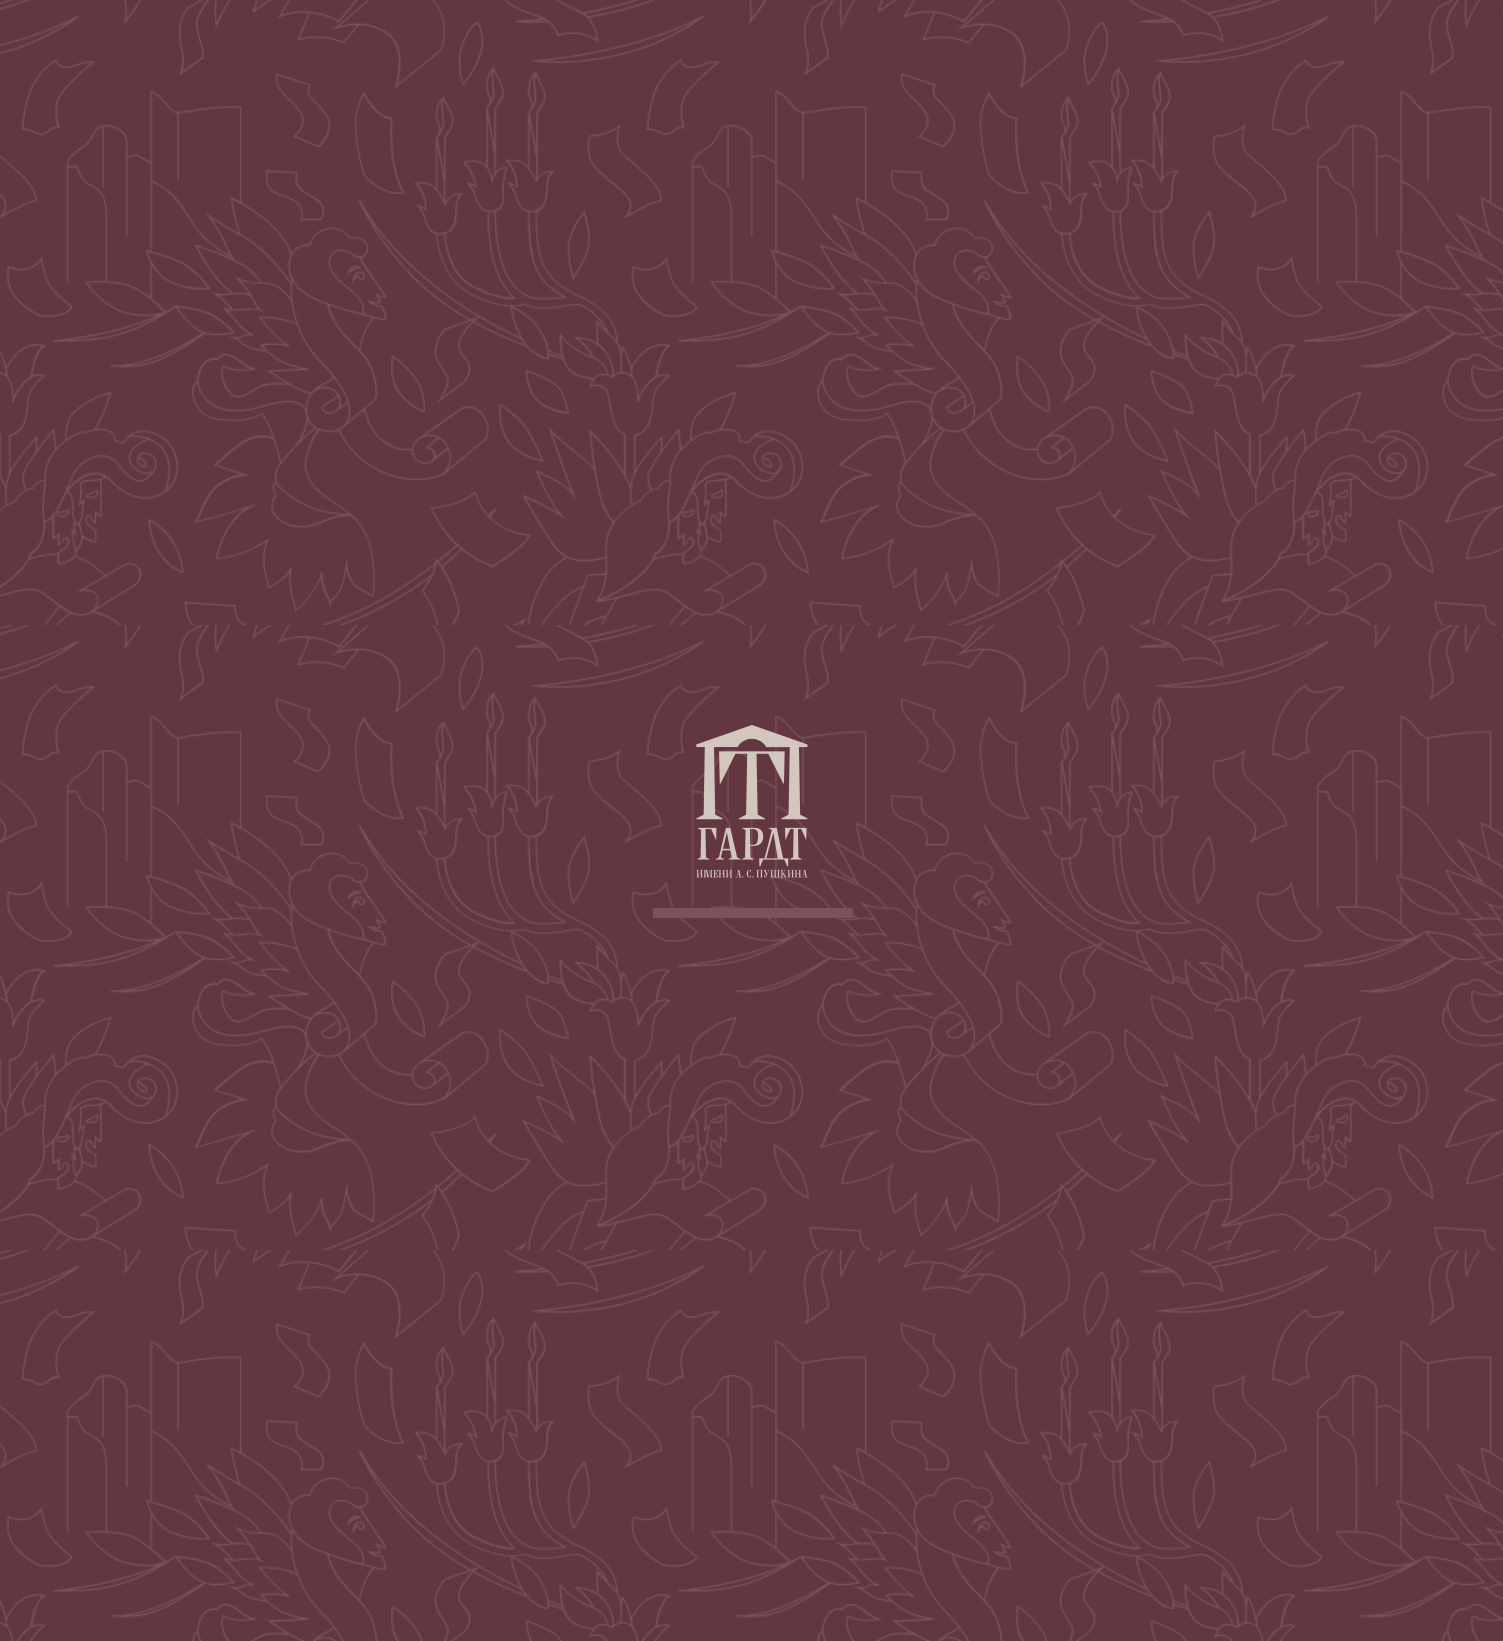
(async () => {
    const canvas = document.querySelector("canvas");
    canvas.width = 1503;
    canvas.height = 1641;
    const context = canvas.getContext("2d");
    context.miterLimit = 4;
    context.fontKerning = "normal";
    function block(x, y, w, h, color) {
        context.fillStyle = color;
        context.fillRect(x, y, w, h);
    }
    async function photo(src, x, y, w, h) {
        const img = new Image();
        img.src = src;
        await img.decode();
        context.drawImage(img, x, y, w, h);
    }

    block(0, 0, 1503, 1641, "rgb(255, 255, 255)");
    await photo("media/1.png", 0, 0, 1503, 1641);
    await photo("media/2.png", 696, 725, 112, 153);
    block(653, 908, 200, 10, "rgb(123, 83, 91)");
})();
